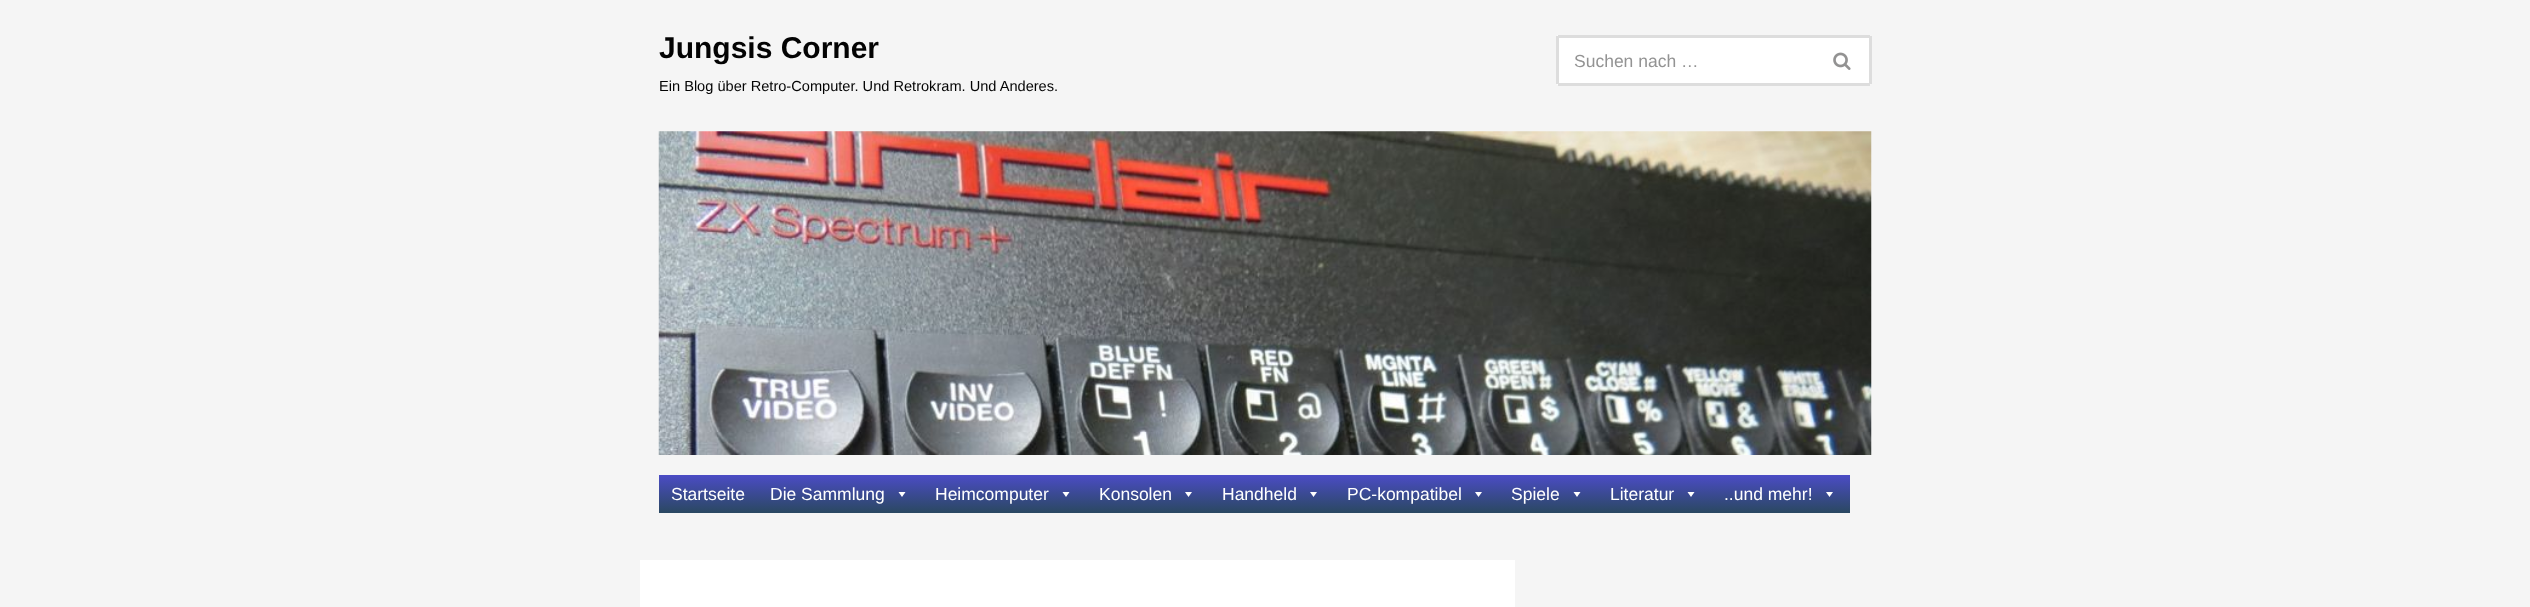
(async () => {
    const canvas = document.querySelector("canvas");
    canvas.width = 2530;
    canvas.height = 607;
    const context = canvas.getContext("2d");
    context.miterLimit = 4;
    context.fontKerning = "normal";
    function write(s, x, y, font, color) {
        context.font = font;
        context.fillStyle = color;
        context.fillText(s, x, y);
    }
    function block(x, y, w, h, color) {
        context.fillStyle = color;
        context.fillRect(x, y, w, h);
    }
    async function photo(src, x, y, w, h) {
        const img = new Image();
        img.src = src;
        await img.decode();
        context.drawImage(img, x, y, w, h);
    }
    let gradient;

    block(0, 0, 2530, 607, "rgb(245, 245, 245)");
    write("Jungsis Corner", 659, 58, "bold 30px Liberation Sans", "rgb(3, 3, 3)");
    write("Ein Blog über Retro-Computer. Und Retrokram. Und Anderes.", 659, 91, "14.6px Liberation Sans", "rgb(3, 3, 3)");
    context.fillStyle = "rgb(255, 255, 255)";
    context.beginPath();
    context.roundRect(1556, 35, 259, 50, [2.5, 0, 0, 2.5]);
    context.fill();
    block(1558, 35, 257, 3, "rgb(221, 221, 221)");
    block(1558, 83, 257, 3, "rgb(221, 221, 221)");
    block(1556, 36, 3, 48, "rgb(221, 221, 221)");
    write("Suchen nach …", 1574, 67, "17.5px Liberation Sans", "rgb(147, 147, 147)");
    context.fillStyle = "rgb(255, 255, 255)";
    context.beginPath();
    context.roundRect(1815, 35, 56, 50, [0, 2.5, 2.5, 0]);
    context.fill();
    block(1815, 35, 55, 3, "rgb(221, 221, 221)");
    block(1869, 36, 3, 48, "rgb(221, 221, 221)");
    block(1815, 83, 55, 3, "rgb(221, 221, 221)");
    await photo("media/1.png", 1833, 52, 18, 18);
    await photo("media/2.png", 658, 131, 1214, 324);
    gradient = context.createLinearGradient(1254, 475, 1254, 513);
    gradient.addColorStop(0, "rgb(75, 76, 197)");
    gradient.addColorStop(1, "rgb(42, 72, 97)");
    context.fillStyle = gradient;
    context.fillRect(659, 475, 1191, 38);
    write("Startseite", 671, 500, "17.5px Liberation Sans", "rgb(255, 255, 255)");
    write("Die Sammlung", 770, 500, "17.5px Liberation Sans", "rgb(255, 255, 255)");
    context.beginPath();
    context.moveTo(905.5, 492);
    context.lineTo(902, 497);
    context.lineTo(898.5, 492);
    context.closePath();
    context.fill();
    write("Heimcomputer", 935, 500, "17.5px Liberation Sans", "rgb(255, 255, 255)");
    context.beginPath();
    context.moveTo(1069.5, 492);
    context.lineTo(1066, 497);
    context.lineTo(1062.5, 492);
    context.closePath();
    context.fill();
    write("Konsolen", 1099, 500, "17.5px Liberation Sans", "rgb(255, 255, 255)");
    context.beginPath();
    context.moveTo(1192, 492);
    context.lineTo(1188.5, 497);
    context.lineTo(1185, 492);
    context.closePath();
    context.fill();
    write("Handheld", 1222, 500, "17.5px Liberation Sans", "rgb(255, 255, 255)");
    context.beginPath();
    context.moveTo(1317, 492);
    context.lineTo(1313.5, 497);
    context.lineTo(1310, 492);
    context.closePath();
    context.fill();
    write("PC-kompatibel", 1347, 500, "17.5px Liberation Sans", "rgb(255, 255, 255)");
    context.beginPath();
    context.moveTo(1482, 492);
    context.lineTo(1478.5, 497);
    context.lineTo(1475, 492);
    context.closePath();
    context.fill();
    write("Spiele", 1511, 500, "17.5px Liberation Sans", "rgb(255, 255, 255)");
    context.beginPath();
    context.moveTo(1580.5, 492);
    context.lineTo(1577, 497);
    context.lineTo(1573.5, 492);
    context.closePath();
    context.fill();
    write("Literatur", 1610, 500, "17.5px Liberation Sans", "rgb(255, 255, 255)");
    context.beginPath();
    context.moveTo(1694.5, 492);
    context.lineTo(1691, 497);
    context.lineTo(1687.5, 492);
    context.closePath();
    context.fill();
    write("..und mehr!", 1724, 500, "17.5px Liberation Sans", "rgb(255, 255, 255)");
    context.beginPath();
    context.moveTo(1833, 492);
    context.lineTo(1829.5, 497);
    context.lineTo(1826, 492);
    context.closePath();
    context.fill();
    block(640, 560, 875, 47, "rgb(255, 255, 255)");
})();
